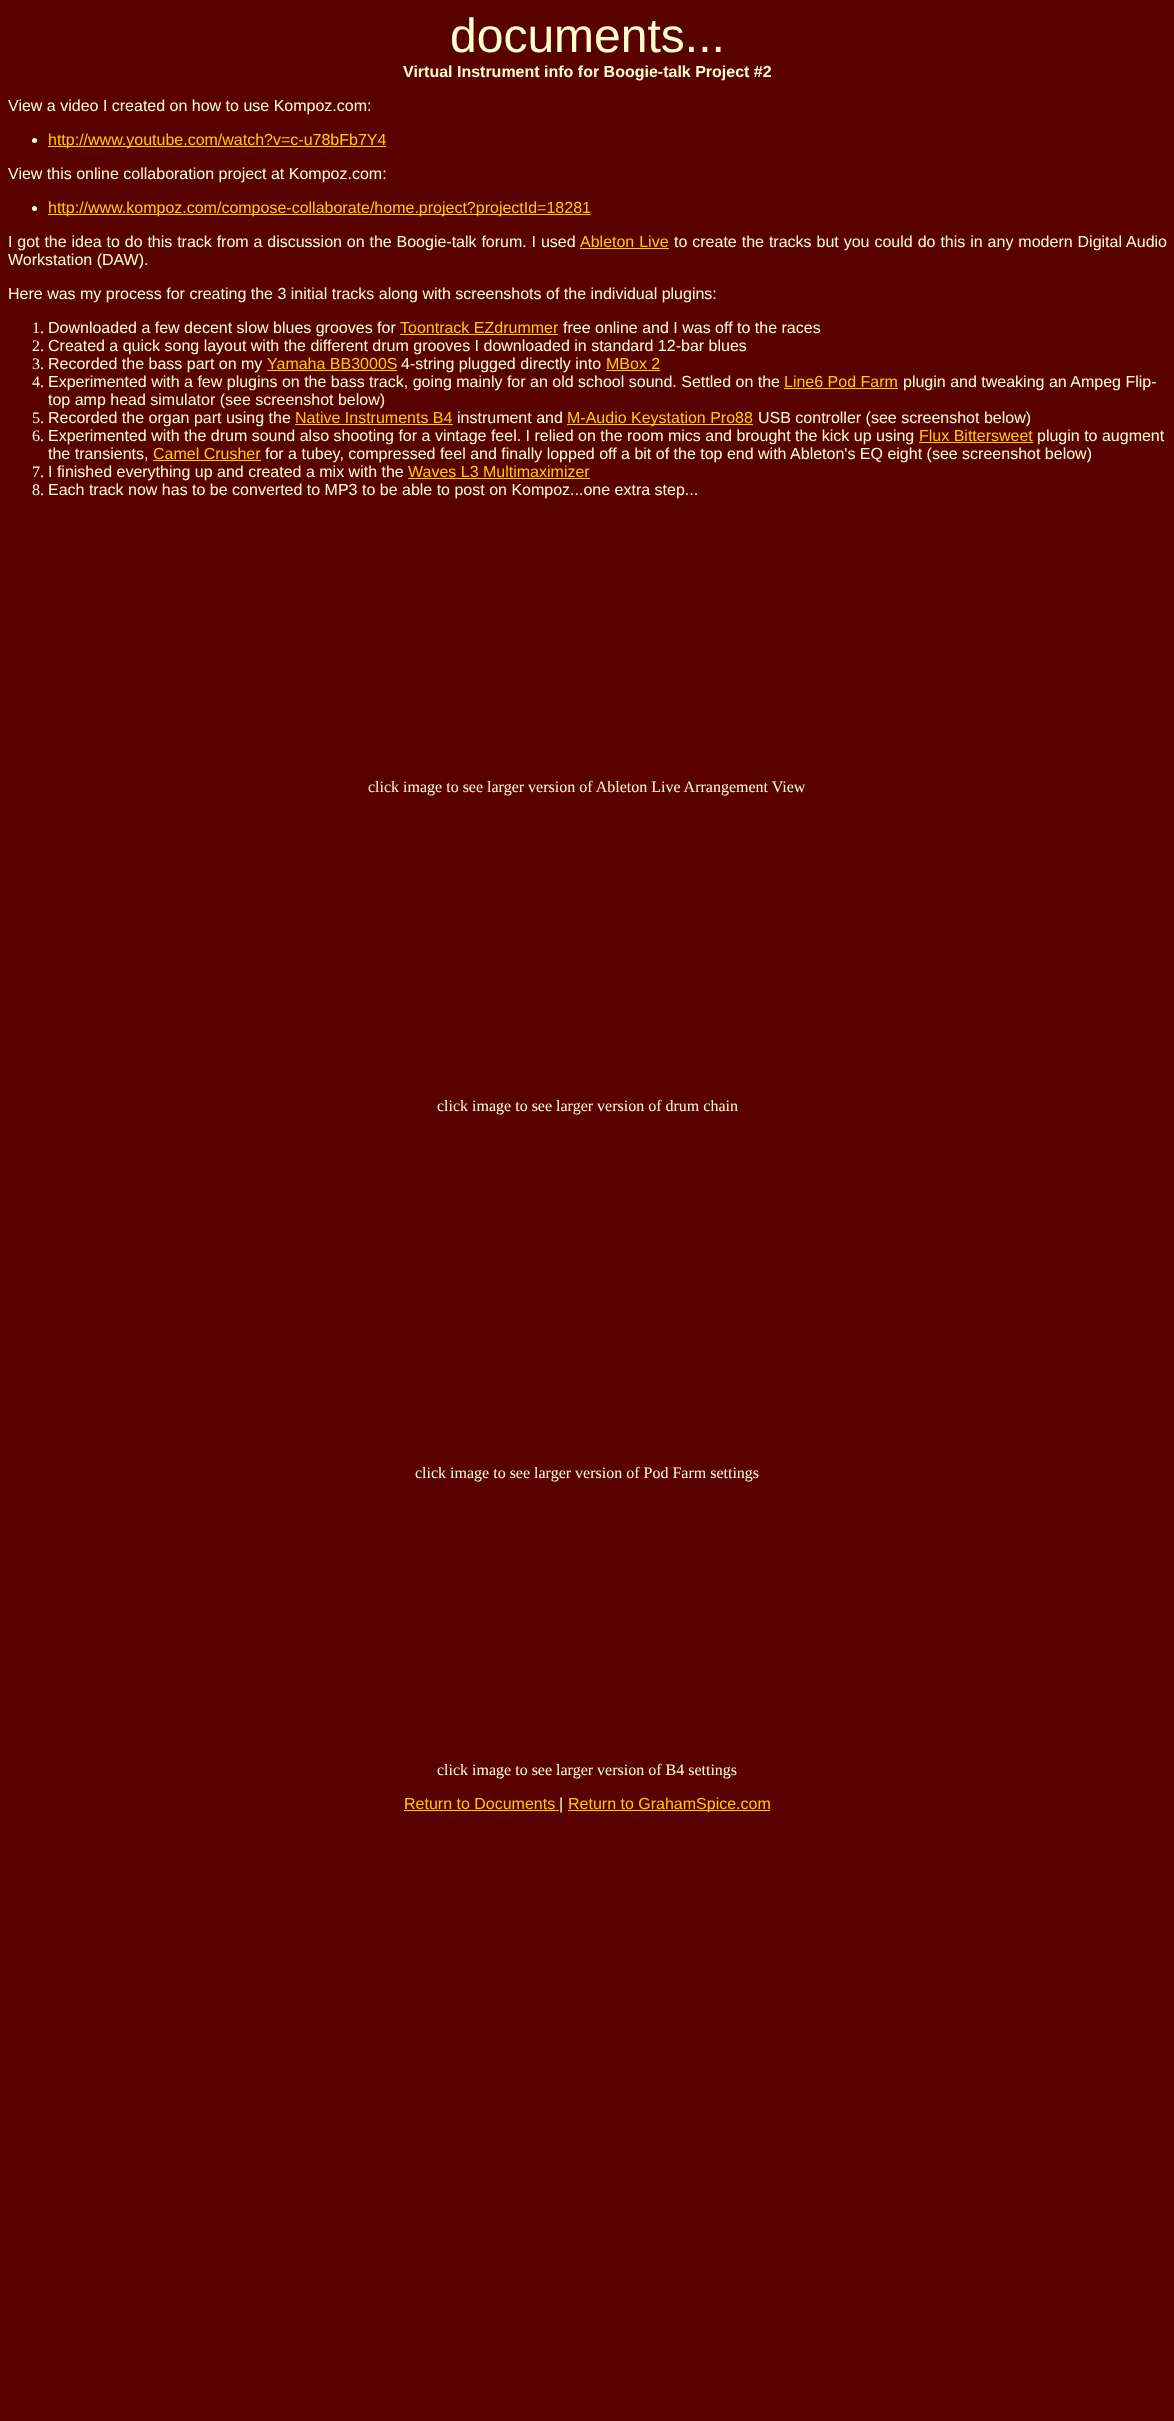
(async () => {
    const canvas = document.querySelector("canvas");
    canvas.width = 1174;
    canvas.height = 2421;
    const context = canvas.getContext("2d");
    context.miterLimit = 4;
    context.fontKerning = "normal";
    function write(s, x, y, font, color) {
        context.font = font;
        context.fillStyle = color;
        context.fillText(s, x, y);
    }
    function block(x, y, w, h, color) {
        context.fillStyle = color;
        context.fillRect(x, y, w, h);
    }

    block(0, 0, 1174, 2421, "rgb(89, 0, 0)");
    write("documents...", 450, 52, "48px Liberation Sans", "rgb(255, 255, 204)");
    write("Virtual Instrument info for Boogie-talk Project #2", 403, 77, "bold 16px Liberation Sans", "rgb(255, 255, 204)");
    write("View a video I created on how to use Kompoz.com:", 8, 111, "16px Liberation Sans", "rgb(255, 255, 204)");
    context.beginPath();
    context.arc(34.5, 140.5, 2.5, 0, Math.PI * 2);
    context.fill();
    block(48, 146, 338, 1, "rgb(255, 204, 0)");
    write("http://www.youtube.com/watch?v=c-u78bFb7Y4", 48, 145, "16px Liberation Sans", "rgb(255, 204, 0)");
    write("View this online collaboration project at Kompoz.com:", 8, 179, "16px Liberation Sans", "rgb(255, 255, 204)");
    context.beginPath();
    context.arc(34.5, 208.5, 2.5, 0, Math.PI * 2);
    context.fill();
    block(48, 214, 543, 1, "rgb(255, 204, 0)");
    write("http://www.kompoz.com/compose-collaborate/home.project?projectId=18281", 48, 213, "16px Liberation Sans", "rgb(255, 204, 0)");
    context.wordSpacing = "0.4px";
    write("I got the idea to do this track from a discussion on the Boogie-talk forum. I used", 8, 247, "16px Liberation Sans", "rgb(255, 255, 204)");
    context.wordSpacing = "0.5px";
    write("Ableton Live", 580, 247, "16px Liberation Sans", "rgb(255, 204, 0)");
    block(580, 248, 89, 1, "rgb(255, 204, 0)");
    write("to create the tracks but you could do this in any modern Digital Audio", 674, 247, "16px Liberation Sans", "rgb(255, 255, 204)");
    context.wordSpacing = "0px";
    write("Workstation (DAW).", 8, 265, "16px Liberation Sans", "rgb(255, 255, 204)");
    write("Here was my process for creating the 3 initial tracks along with screenshots of the individual plugins:", 8, 299, "16px Liberation Sans", "rgb(255, 255, 204)");
    write("1.", 32, 333, "16px Liberation Serif", "rgb(255, 255, 204)");
    write("Downloaded a few decent slow blues grooves for", 48, 333, "16px Liberation Sans", "rgb(255, 255, 204)");
    write("Toontrack EZdrummer", 400, 333, "16px Liberation Sans", "rgb(255, 204, 0)");
    block(400, 334, 158, 1, "rgb(255, 204, 0)");
    write("free online and I was off to the races", 563, 333, "16px Liberation Sans", "rgb(255, 255, 204)");
    write("2.", 32, 351, "16px Liberation Serif", "rgb(255, 255, 204)");
    write("Created a quick song layout with the different drum grooves I downloaded in standard 12-bar blues", 48, 351, "16px Liberation Sans", "rgb(255, 255, 204)");
    write("3.", 32, 369, "16px Liberation Serif", "rgb(255, 255, 204)");
    write("Recorded the bass part on my", 48, 369, "16px Liberation Sans", "rgb(255, 255, 204)");
    write("Yamaha BB3000S", 267, 369, "16px Liberation Sans", "rgb(255, 204, 0)");
    block(267, 370, 130, 1, "rgb(255, 204, 0)");
    write("4-string plugged directly into", 401, 369, "16px Liberation Sans", "rgb(255, 255, 204)");
    write("MBox 2", 606, 369, "16px Liberation Sans", "rgb(255, 204, 0)");
    block(606, 370, 54, 1, "rgb(255, 204, 0)");
    write("4.", 32, 387, "16px Liberation Serif", "rgb(255, 255, 204)");
    write("Experimented with a few plugins on the bass track, going mainly for an old school sound. Settled on the", 48, 387, "16px Liberation Sans", "rgb(255, 255, 204)");
    write("Line6 Pod Farm", 784, 387, "16px Liberation Sans", "rgb(255, 204, 0)");
    block(784, 388, 114, 1, "rgb(255, 204, 0)");
    write("plugin and tweaking an Ampeg Flip-", 903, 387, "16px Liberation Sans", "rgb(255, 255, 204)");
    write("top amp head simulator (see screenshot below)", 48, 405, "16px Liberation Sans", "rgb(255, 255, 204)");
    write("5.", 32, 423, "16px Liberation Serif", "rgb(255, 255, 204)");
    write("Recorded the organ part using the", 48, 423, "16px Liberation Sans", "rgb(255, 255, 204)");
    write("Native Instruments B4", 295, 423, "16px Liberation Sans", "rgb(255, 204, 0)");
    block(295, 424, 158, 1, "rgb(255, 204, 0)");
    write("instrument and", 457, 423, "16px Liberation Sans", "rgb(255, 255, 204)");
    block(567, 424, 186, 1, "rgb(255, 204, 0)");
    write("M-Audio Keystation Pro88", 567, 423, "16px Liberation Sans", "rgb(255, 204, 0)");
    write("USB controller (see screenshot below)", 758, 423, "16px Liberation Sans", "rgb(255, 255, 204)");
    write("6.", 32, 441, "16px Liberation Serif", "rgb(255, 255, 204)");
    write("Experimented with the drum sound also shooting for a vintage feel. I relied on the room mics and brought the kick up using", 48, 441, "16px Liberation Sans", "rgb(255, 255, 204)");
    write("Flux Bittersweet", 919, 441, "16px Liberation Sans", "rgb(255, 204, 0)");
    block(919, 442, 114, 1, "rgb(255, 204, 0)");
    write("plugin to augment", 1037, 441, "16px Liberation Sans", "rgb(255, 255, 204)");
    write("the transients,", 48, 459, "16px Liberation Sans", "rgb(255, 255, 204)");
    write("Camel Crusher", 153, 459, "16px Liberation Sans", "rgb(255, 204, 0)");
    block(153, 460, 108, 1, "rgb(255, 204, 0)");
    write("for a tubey, compressed feel and finally lopped off a bit of the top end with Ableton's EQ eight (see screenshot below)", 265, 459, "16px Liberation Sans", "rgb(255, 255, 204)");
    write("7.", 32, 477, "16px Liberation Serif", "rgb(255, 255, 204)");
    write("I finished everything up and created a mix with the", 48, 477, "16px Liberation Sans", "rgb(255, 255, 204)");
    write("Waves L3 Multimaximizer", 408, 477, "16px Liberation Sans", "rgb(255, 204, 0)");
    block(408, 478, 182, 1, "rgb(255, 204, 0)");
    write("8.", 32, 495, "16px Liberation Serif", "rgb(255, 255, 204)");
    write("Each track now has to be converted to MP3 to be able to post on Kompoz...one extra step...", 48, 495, "16px Liberation Sans", "rgb(255, 255, 204)");
    write("click image to see larger version of Ableton Live Arrangement View", 368, 792, "16px Liberation Serif", "rgb(255, 255, 204)");
    write("click image to see larger version of drum chain", 437, 1111, "16px Liberation Serif", "rgb(255, 255, 204)");
    write("click image to see larger version of Pod Farm settings", 415, 1478, "16px Liberation Serif", "rgb(255, 255, 204)");
    write("click image to see larger version of B4 settings", 437, 1775, "16px Liberation Serif", "rgb(255, 255, 204)");
    write("Return to Documents", 404, 1809, "16px Liberation Sans", "rgb(255, 204, 0)");
    write("|", 559, 1809, "16px Liberation Sans", "rgb(255, 255, 204)");
    block(404, 1810, 155, 1, "rgb(255, 204, 0)");
    block(568, 1810, 202, 1, "rgb(255, 204, 0)");
    write("Return to GrahamSpice.com", 568, 1809, "16px Liberation Sans", "rgb(255, 204, 0)");
})();
